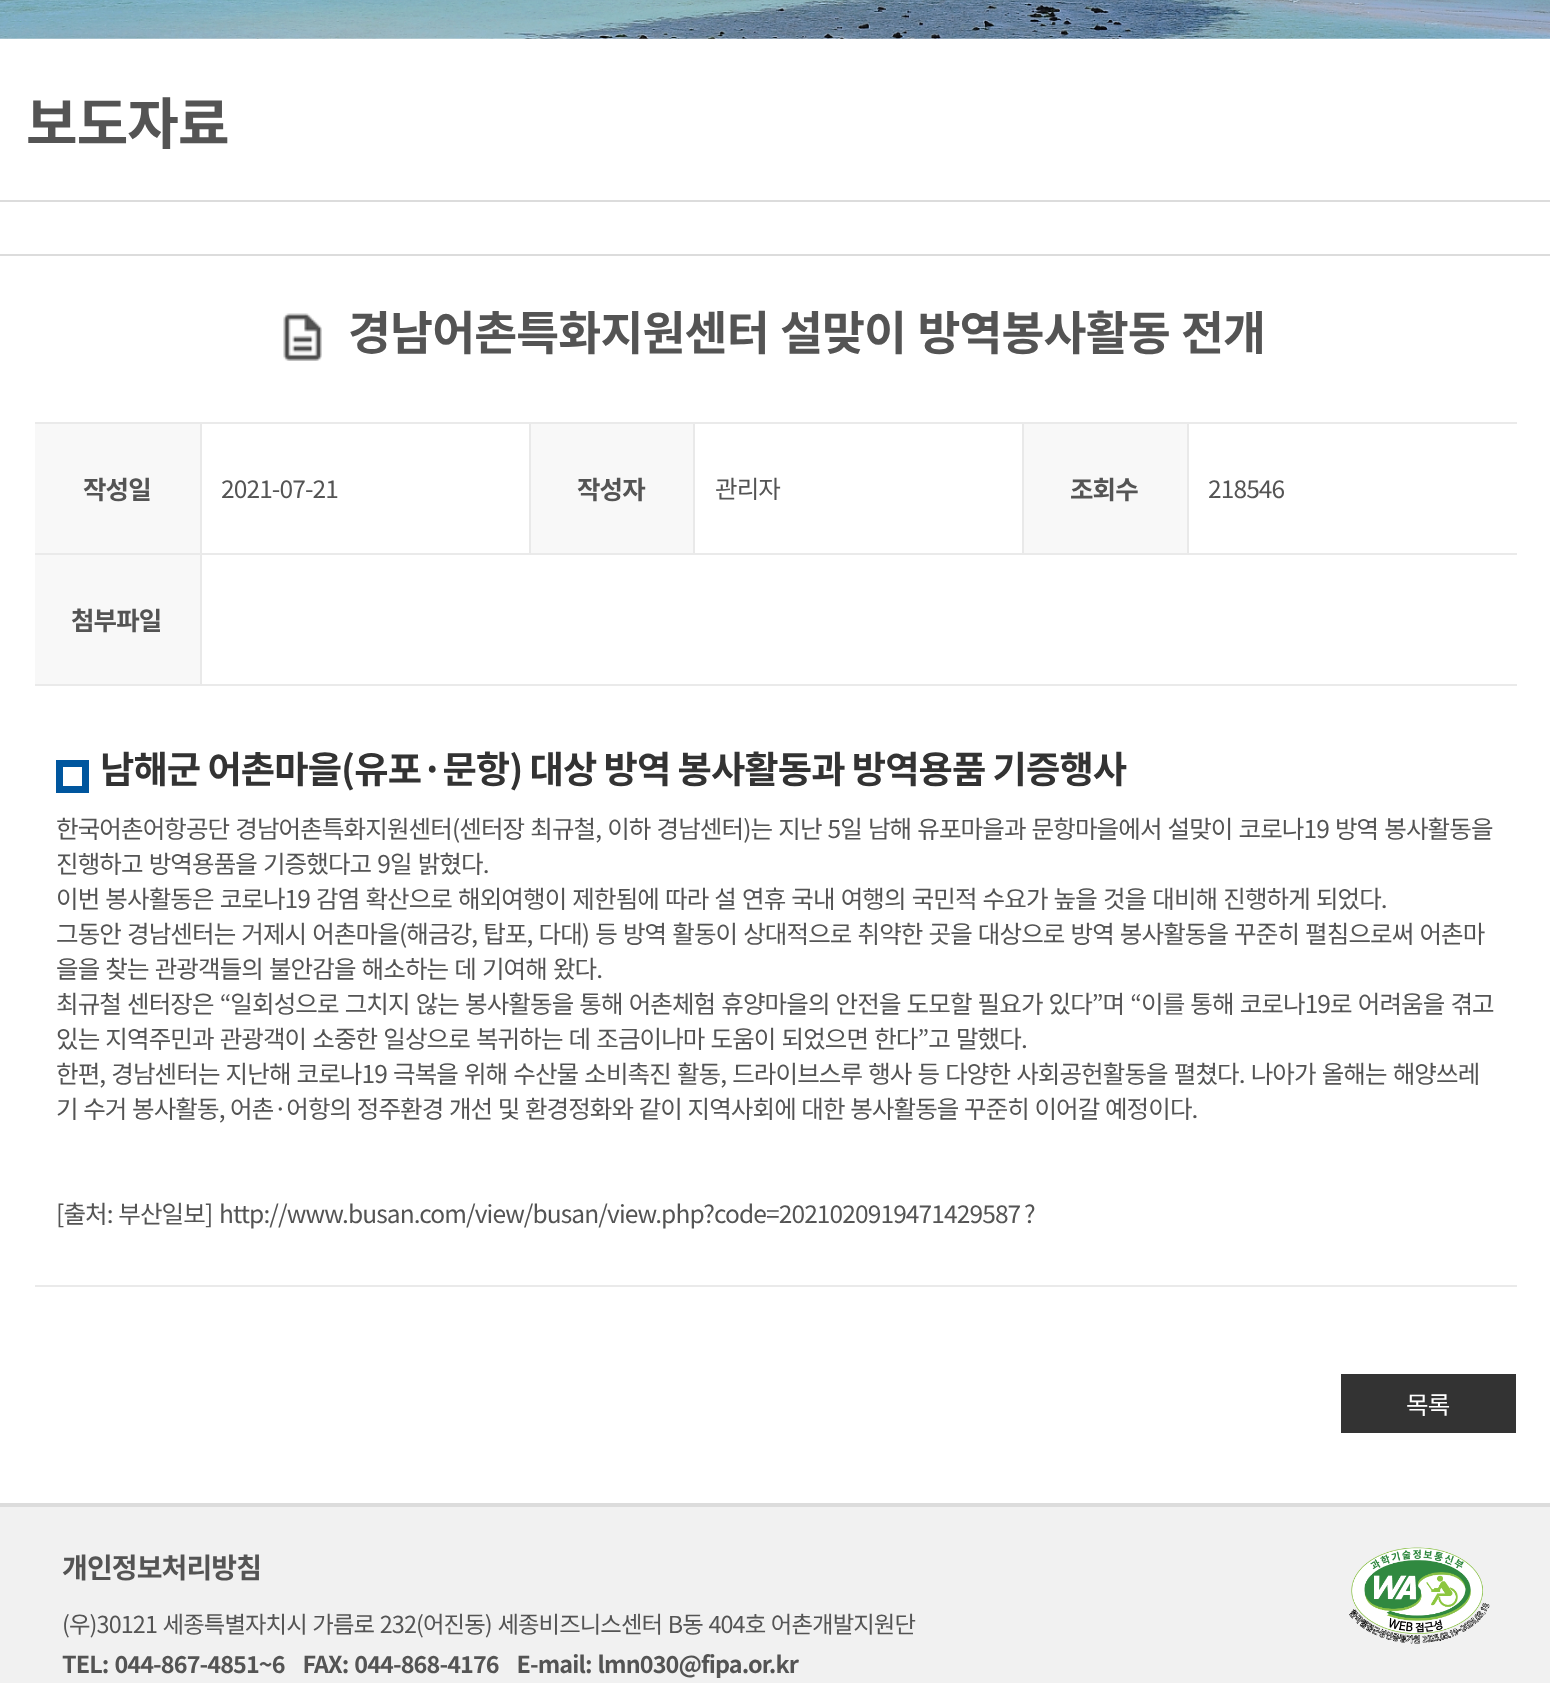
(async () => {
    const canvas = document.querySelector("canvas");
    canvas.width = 1550;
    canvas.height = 1683;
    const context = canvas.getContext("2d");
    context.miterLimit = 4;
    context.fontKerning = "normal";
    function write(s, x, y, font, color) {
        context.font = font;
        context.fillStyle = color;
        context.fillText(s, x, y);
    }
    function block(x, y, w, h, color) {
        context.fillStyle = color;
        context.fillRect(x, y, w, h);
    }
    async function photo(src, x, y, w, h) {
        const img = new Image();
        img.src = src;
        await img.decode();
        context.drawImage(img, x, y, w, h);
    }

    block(0, 0, 1550, 1683, "rgb(255, 255, 255)");
    await photo("media/1.png", 0, 0, 1550, 39);
    block(0, 200, 1550, 2, "rgb(220, 220, 220)");
    context.letterSpacing = "-0.88px";
    write("보도자료", 26, 144, "bold 56px Noto Sans KR", "rgb(84, 84, 84)");
    block(0, 254, 1550, 2, "rgb(220, 220, 220)");
    block(1187, 553, 330, 2, "rgb(234, 234, 234)");
    block(1187, 422, 2, 133, "rgb(233, 233, 233)");
    block(1022, 553, 166, 2, "rgb(234, 234, 234)");
    block(1022, 422, 2, 133, "rgb(233, 233, 233)");
    block(693, 553, 331, 2, "rgb(234, 234, 234)");
    block(693, 422, 2, 133, "rgb(233, 233, 233)");
    block(529, 553, 166, 2, "rgb(234, 234, 234)");
    block(529, 422, 2, 133, "rgb(233, 233, 233)");
    block(200, 684, 1317, 2, "rgb(234, 234, 234)");
    block(200, 553, 2, 133, "rgb(233, 233, 233)");
    block(200, 553, 330, 2, "rgb(234, 234, 234)");
    block(200, 422, 2, 133, "rgb(233, 233, 233)");
    block(35, 422, 1482, 2, "rgb(234, 234, 234)");
    await photo("media/2.png", 283, 313, 39, 48);
    context.wordSpacing = "1.5px";
    write("경남어촌특화지원센터 설맞이 방역봉사활동 전개", 348, 350, "bold 46.7px Noto Sans KR", "rgb(84, 84, 84)");
    block(35, 424, 165, 129, "rgb(248, 248, 248)");
    block(35, 553, 166, 2, "rgb(234, 234, 234)");
    context.wordSpacing = "0px";
    write("작성일", 83, 499, "bold 25.5px Noto Sans KR", "rgb(84, 84, 84)");
    write("2021-07-21", 221, 498, "24.5px Noto Sans KR", "rgb(84, 84, 84)");
    block(531, 424, 162, 129, "rgb(248, 248, 248)");
    write("작성자", 577, 499, "bold 25.5px Noto Sans KR", "rgb(84, 84, 84)");
    write("관리자", 715, 498, "24.5px Noto Sans KR", "rgb(84, 84, 84)");
    block(1024, 424, 163, 129, "rgb(248, 248, 248)");
    write("조회수", 1070, 499, "bold 25.5px Noto Sans KR", "rgb(84, 84, 84)");
    write("218546", 1208, 498, "24.5px Noto Sans KR", "rgb(84, 84, 84)");
    block(35, 555, 165, 129, "rgb(248, 248, 248)");
    block(35, 684, 166, 2, "rgb(234, 234, 234)");
    write("첨부파일", 71, 630, "bold 25.5px Noto Sans KR", "rgb(84, 84, 84)");
    block(35, 1285, 1482, 2, "rgb(234, 234, 234)");
    context.strokeStyle = "rgb(0, 86, 158)";
    context.lineWidth = 7;
    context.strokeRect(59.5, 763.5, 26, 26);
    context.wordSpacing = "-0.5px";
    write("남해군 어촌마을(유포·문항) 대상 방역 봉사활동과 방역용품 기증행사", 100, 783, "bold 37.3px Noto Sans KR", "rgb(51, 51, 51)");
    context.wordSpacing = "1.4px";
    write("한국어촌어항공단 경남어촌특화지원센터(센터장 최규철, 이하 경남센터)는 지난 5일 남해 유포마을과 문항마을에서 설맞이 코로나19 방역 봉사활동을", 56, 838, "24.5px Noto Sans KR", "rgb(84, 84, 84)");
    write("진행하고 방역용품을 기증했다고 9일 밝혔다.", 56, 873, "24.5px Noto Sans KR", "rgb(84, 84, 84)");
    write("이번 봉사활동은 코로나19 감염 확산으로 해외여행이 제한됨에 따라 설 연휴 국내 여행의 국민적 수요가 높을 것을 대비해 진행하게 되었다.", 56, 908, "24.5px Noto Sans KR", "rgb(84, 84, 84)");
    write("그동안 경남센터는 거제시 어촌마을(해금강, 탑포, 다대) 등 방역 활동이 상대적으로 취약한 곳을 대상으로 방역 봉사활동을 꾸준히 펼침으로써 어촌마", 56, 943, "24.5px Noto Sans KR", "rgb(84, 84, 84)");
    write("을을 찾는 관광객들의 불안감을 해소하는 데 기여해 왔다.", 56, 978, "24.5px Noto Sans KR", "rgb(84, 84, 84)");
    write("최규철 센터장은 “일회성으로 그치지 않는 봉사활동을 통해 어촌체험 휴양마을의 안전을 도모할 필요가 있다”며 “이를 통해 코로나19로 어려움을 겪고", 56, 1013, "24.5px Noto Sans KR", "rgb(84, 84, 84)");
    write("있는 지역주민과 관광객이 소중한 일상으로 복귀하는 데 조금이나마 도움이 되었으면 한다”고 말했다.", 56, 1048, "24.5px Noto Sans KR", "rgb(84, 84, 84)");
    write("한편, 경남센터는 지난해 코로나19 극복을 위해 수산물 소비촉진 활동, 드라이브스루 행사 등 다양한 사회공헌활동을 펼쳤다. 나아가 올해는 해양쓰레", 56, 1083, "24.5px Noto Sans KR", "rgb(84, 84, 84)");
    context.wordSpacing = "0.9px";
    write("기 수거 봉사활동, 어촌·어항의 정주환경 개선 및 환경정화와 같이 지역사회에 대한 봉사활동을 꾸준히 이어갈 예정이다.", 56, 1118, "24.5px Noto Sans KR", "rgb(84, 84, 84)");
    context.wordSpacing = "1px";
    write("[출처: 부산일보]", 56, 1223, "24.5px Noto Sans KR", "rgb(84, 84, 84)");
    context.wordSpacing = "0px";
    write("http://www.busan.com/view/busan/view.php?code=2021020919471429587", 219, 1223, "24.5px Noto Sans KR", "rgb(84, 84, 84)");
    write("?", 1024, 1223, "24.5px Noto Sans KR", "rgb(84, 84, 84)");
    block(1341, 1374, 175, 59, "rgb(51, 51, 51)");
    write("목록", 1406, 1414, "24.5px Noto Sans KR", "rgb(255, 255, 255)");
    block(0, 1507, 1550, 176, "rgb(241, 241, 241)");
    block(0, 1503, 1550, 4, "rgb(220, 220, 220)");
    write("개인정보처리방침", 62, 1578, "bold 28px Noto Sans KR", "rgb(84, 84, 84)");
    context.wordSpacing = "1.25px";
    write("(우)30121 세종특별자치시 가름로 232(어진동) 세종비즈니스센터 B동 404호 어촌개발지원단", 62, 1633, "23.35px Noto Sans KR", "rgb(84, 84, 84)");
    context.wordSpacing = "1.5px";
    write("TEL: 044-867-4851~6   FAX: 044-868-4176   E-mail: lmn030@fipa.or.kr", 62, 1673, "bold 23.35px Noto Sans KR", "rgb(84, 84, 84)");
    await photo("media/3.png", 1349, 1547, 141, 97);
})();
